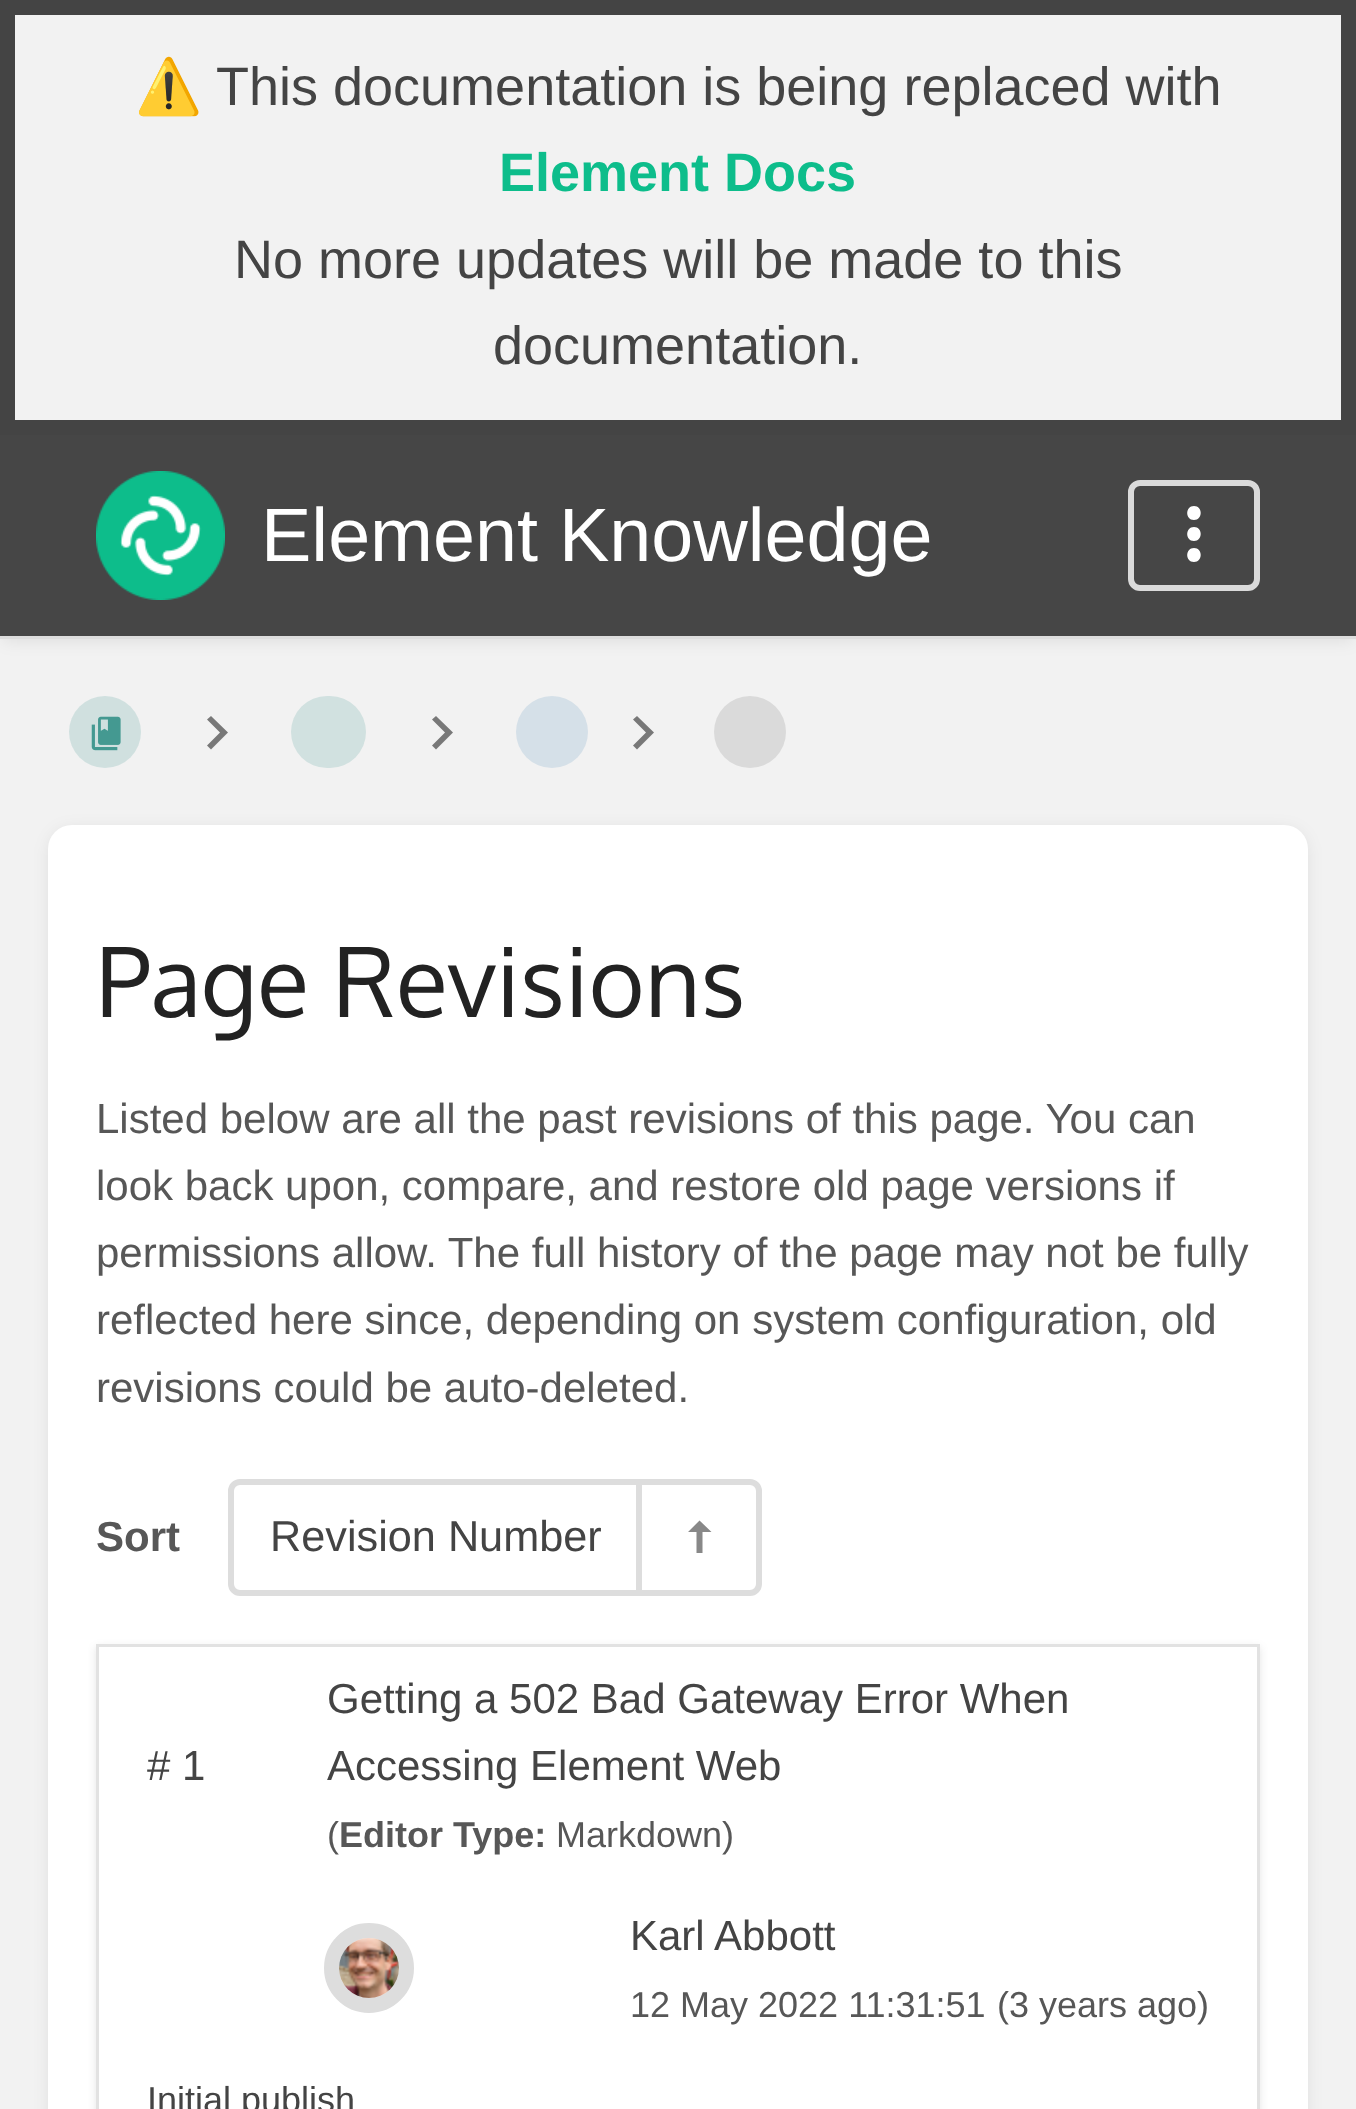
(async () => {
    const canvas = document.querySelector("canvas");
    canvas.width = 1356;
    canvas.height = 2109;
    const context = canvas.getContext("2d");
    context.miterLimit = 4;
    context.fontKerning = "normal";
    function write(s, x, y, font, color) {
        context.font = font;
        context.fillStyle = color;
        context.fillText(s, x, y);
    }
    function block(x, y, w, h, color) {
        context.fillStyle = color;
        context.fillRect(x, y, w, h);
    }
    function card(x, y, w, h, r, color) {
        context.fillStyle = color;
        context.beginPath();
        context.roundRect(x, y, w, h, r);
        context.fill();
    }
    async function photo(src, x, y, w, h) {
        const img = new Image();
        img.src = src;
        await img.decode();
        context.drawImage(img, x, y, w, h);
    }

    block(0, 0, 1356, 2109, "rgb(242, 242, 242)");
    context.fillStyle = "rgba(0, 0, 0, 0.1)";
    context.filter = "blur(9px)";
    context.beginPath();
    context.rect(3, 441, 1350, 198);
    context.fill();
    context.filter = "none";
    context.strokeStyle = "rgb(68, 68, 68)";
    context.lineWidth = 15;
    context.strokeRect(7.5, 7.5, 1341, 420);
    write("⚠️", 135, 105, "54px Noto Color Emoji", "rgb(68, 68, 68)");
    write("This documentation is being replaced with", 216, 105, "54px Liberation Sans", "rgb(68, 68, 68)");
    write("Element Docs", 499, 191, "bold 54px Liberation Sans", "rgb(13, 189, 139)");
    write("No more updates will be made to this", 234, 278, "54px Liberation Sans", "rgb(68, 68, 68)");
    write("documentation.", 493, 364, "54px Liberation Sans", "rgb(68, 68, 68)");
    block(0, 435, 1356, 201, "rgb(70, 70, 70)");
    block(0, 636, 1356, 3, "rgb(221, 221, 221)");
    await photo("media/1.png", 96, 471, 129, 129);
    write("Element Knowledge", 261, 561, "75.5px Liberation Sans", "rgb(255, 255, 255)");
    context.beginPath();
    context.roundRect(1131, 483, 126, 105, 9);
    context.strokeStyle = "rgb(218, 218, 218)";
    context.lineWidth = 6;
    context.stroke();
    context.beginPath();
    context.moveTo(1194, 520);
    context.bezierCurveTo(1203, 520, 1203, 506, 1194, 506);
    context.bezierCurveTo(1185, 506, 1185, 520, 1194, 520);
    context.moveTo(1194, 527);
    context.bezierCurveTo(1185, 527, 1185, 541, 1194, 541);
    context.bezierCurveTo(1203, 541, 1203, 527, 1194, 527);
    context.moveTo(1194, 548);
    context.bezierCurveTo(1185, 548, 1185, 562, 1194, 562);
    context.bezierCurveTo(1203, 562, 1203, 548, 1194, 548);
    context.fill();
    await photo("media/2.png", 91, 716, 30, 35);
    context.fillStyle = "rgba(7, 123, 112, 0.14)";
    context.beginPath();
    context.arc(105, 732, 36, 0, Math.PI * 2);
    context.fill();
    context.fillStyle = "rgb(120, 120, 120)";
    context.beginPath();
    context.moveTo(211, 716);
    context.lineTo(207, 719.5);
    context.lineTo(220, 732.5);
    context.lineTo(207, 745.5);
    context.lineTo(211, 749.5);
    context.lineTo(228, 732.5);
    context.closePath();
    context.fill();
    card(291, 696, 75, 72, 36, "rgb(209, 225, 224)");
    context.fillStyle = "rgb(120, 120, 120)";
    context.beginPath();
    context.moveTo(436, 716);
    context.lineTo(432, 719.5);
    context.lineTo(445, 732.5);
    context.lineTo(432, 745.5);
    context.lineTo(436, 749.5);
    context.lineTo(453, 732.5);
    context.closePath();
    context.fill();
    context.fillStyle = "rgb(213, 224, 232)";
    context.beginPath();
    context.arc(552, 732, 36, 0, Math.PI * 2);
    context.fill();
    context.fillStyle = "rgb(120, 120, 120)";
    context.beginPath();
    context.moveTo(637, 716);
    context.lineTo(633, 719.5);
    context.lineTo(646, 732.5);
    context.lineTo(633, 745.5);
    context.lineTo(637, 749.5);
    context.lineTo(654, 732.5);
    context.closePath();
    context.fill();
    context.fillStyle = "rgb(218, 218, 218)";
    context.beginPath();
    context.arc(750, 732, 36, 0, Math.PI * 2);
    context.fill();
    context.fillStyle = "rgba(0, 0, 0, 0.1)";
    context.filter = "blur(9px)";
    context.beginPath();
    context.roundRect(51, 831, 1254, 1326, 21);
    context.fill();
    context.filter = "none";
    card(48, 825, 1260, 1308, 24, "rgb(255, 255, 255)");
    write("Page Revisions", 96, 1017, "96px Oxygen", "rgb(34, 34, 34)");
    write("Listed below are all the past revisions of this page. You can", 96, 1133, "42px Liberation Sans", "rgb(87, 87, 87)");
    write("look back upon, compare, and restore old page versions if", 96, 1200, "42px Liberation Sans", "rgb(87, 87, 87)");
    write("permissions allow. The full history of the page may not be fully", 96, 1267, "42px Liberation Sans", "rgb(87, 87, 87)");
    write("reflected here since, depending on system configuration, old", 96, 1334, "42px Liberation Sans", "rgb(87, 87, 87)");
    write("revisions could be auto-deleted.", 96, 1402, "42px Liberation Sans", "rgb(87, 87, 87)");
    write("Sort", 96, 1551, "bold 42px Liberation Sans", "rgb(87, 87, 87)");
    context.beginPath();
    context.roundRect(231, 1482, 528, 111, 9);
    context.strokeStyle = "rgb(221, 221, 221)";
    context.stroke();
    write("Revision Number", 270, 1551, "43.25px Liberation Sans", "rgb(68, 68, 68)");
    block(636, 1485, 6, 105, "rgb(221, 221, 221)");
    context.fillStyle = "rgb(136, 136, 136)";
    context.beginPath();
    context.moveTo(699.5, 1520.5);
    context.lineTo(688, 1532);
    context.lineTo(696.5, 1532);
    context.lineTo(696.5, 1553);
    context.lineTo(702.5, 1553);
    context.lineTo(702.5, 1532);
    context.lineTo(711.5, 1532);
    context.closePath();
    context.fill();
    context.save();
    context.beginPath();
    context.moveTo(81, 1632);
    context.lineTo(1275, 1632);
    context.lineTo(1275, 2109);
    context.lineTo(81, 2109);
    context.closePath();
    context.moveTo(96, 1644);
    context.lineTo(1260, 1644);
    context.lineTo(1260, 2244);
    context.lineTo(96, 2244);
    context.closePath();
    context.clip("evenodd");
    context.fillStyle = "rgba(0, 0, 0, 0.1)";
    context.filter = "blur(4.5px)";
    context.beginPath();
    context.rect(96, 1647, 1164, 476);
    context.fill();
    context.filter = "none";
    context.restore();
    context.strokeStyle = "rgb(226, 226, 226)";
    context.lineWidth = 3;
    context.strokeRect(97.5, 1645.5, 1161, 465);
    write("# 1", 147, 1780, "42px Liberation Sans", "rgb(68, 68, 68)");
    write("Getting a 502 Bad Gateway Error When", 327, 1713, "42px Liberation Sans", "rgb(68, 68, 68)");
    write("Accessing Element Web", 327, 1780, "42px Liberation Sans", "rgb(68, 68, 68)");
    write("(", 327, 1847, "36px Liberation Sans", "rgb(87, 87, 87)");
    write("Editor Type:", 339, 1847, "bold 36px Liberation Sans", "rgb(87, 87, 87)");
    write("Markdown)", 556, 1847, "36px Liberation Sans", "rgb(87, 87, 87)");
    context.fillStyle = "rgb(238, 238, 238)";
    context.beginPath();
    context.arc(369, 1968, 37.5, 0, Math.PI * 2);
    context.fill();
    context.strokeStyle = "rgb(221, 221, 221)";
    context.lineWidth = 15;
    context.stroke();
    await photo("media/3.png", 339, 1938, 60, 60);
    write("Karl Abbott", 630, 1950, "42px Liberation Sans", "rgb(68, 68, 68)");
    write("12 May 2022 11:31:51", 630, 2017, "36px Liberation Sans", "rgb(87, 87, 87)");
    write("(3 years ago)", 997, 2017, "36px Liberation Sans", "rgb(87, 87, 87)");
    write("Initial publish", 147, 2112, "36px Liberation Sans", "rgb(68, 68, 68)");
})();
